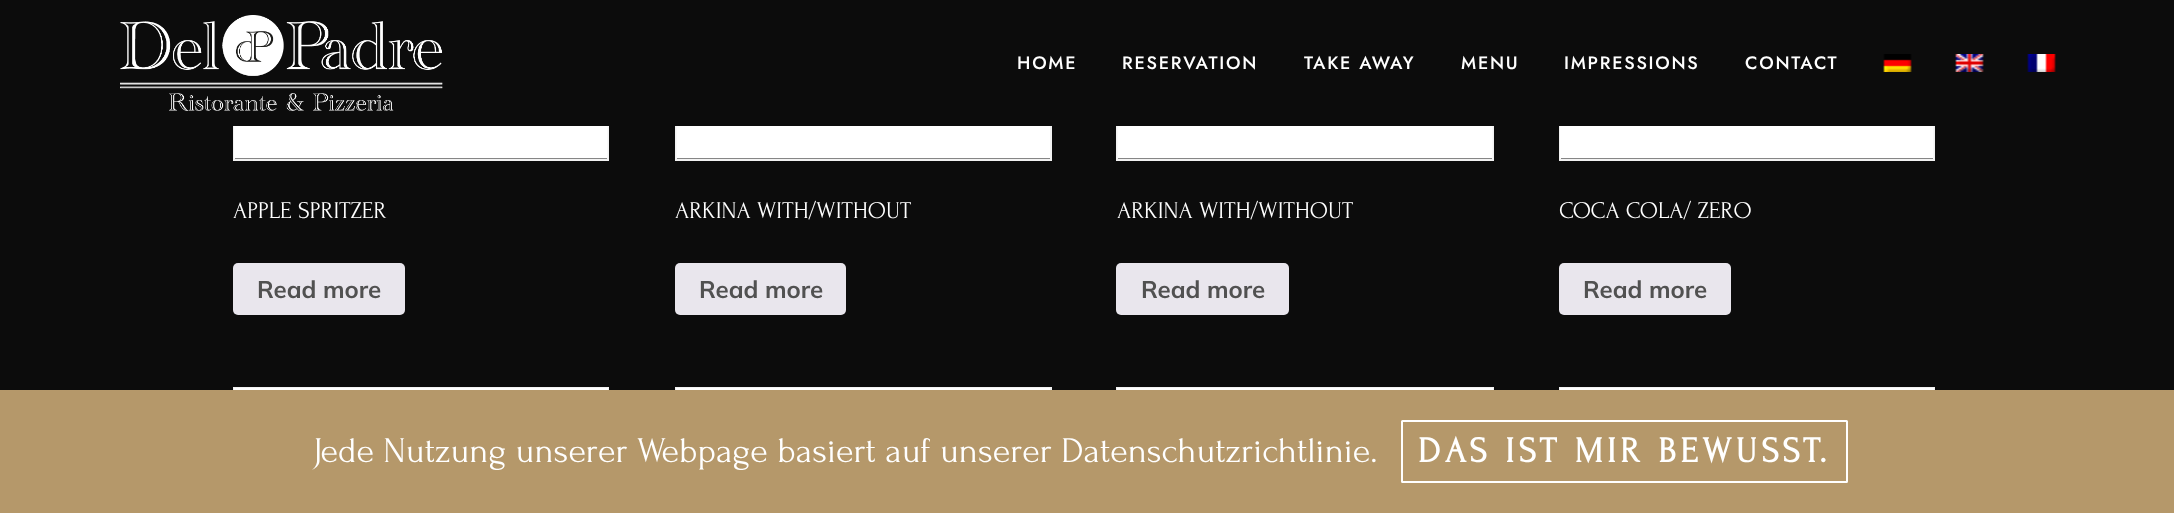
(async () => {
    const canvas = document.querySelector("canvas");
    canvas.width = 2174;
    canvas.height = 513;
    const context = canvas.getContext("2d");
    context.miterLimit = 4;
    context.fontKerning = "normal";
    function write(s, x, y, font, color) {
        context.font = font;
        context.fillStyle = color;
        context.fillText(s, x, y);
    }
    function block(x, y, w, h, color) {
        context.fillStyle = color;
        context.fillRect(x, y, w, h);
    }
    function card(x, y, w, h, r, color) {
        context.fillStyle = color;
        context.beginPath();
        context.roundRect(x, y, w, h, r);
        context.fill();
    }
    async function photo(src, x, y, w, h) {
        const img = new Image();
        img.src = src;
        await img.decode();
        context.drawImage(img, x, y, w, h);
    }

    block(0, 0, 2174, 513, "rgb(12, 12, 12)");
    context.strokeStyle = "rgb(242, 242, 242)";
    context.lineWidth = 2;
    context.strokeRect(234, -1, 374, 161);
    context.strokeRect(676, -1, 375, 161);
    context.strokeRect(1117, -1, 376, 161);
    context.strokeRect(1560, -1, 374, 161);
    block(233, 0, 1702, 126, "rgb(12, 12, 12)");
    await photo("media/1.png", 120, 15, 323, 96);
    context.letterSpacing = "1.75px";
    write("HOME", 1017, 69, "500 18px Jost", "rgb(255, 255, 255)");
    write("RESERVATION", 1122, 69, "500 18px Jost", "rgb(255, 255, 255)");
    write("TAKE AWAY", 1304, 69, "500 18px Jost", "rgb(255, 255, 255)");
    write("MENU", 1461, 69, "500 18px Jost", "rgb(255, 255, 255)");
    write("IMPRESSIONS", 1564, 69, "500 18px Jost", "rgb(255, 255, 255)");
    write("CONTACT", 1745, 69, "500 18px Jost", "rgb(255, 255, 255)");
    await photo("media/2.png", 1883, 54, 29, 18);
    await photo("media/3.png", 1955, 54, 29, 18);
    await photo("media/4.png", 2027, 54, 29, 18);
    await photo("media/5.png", 234, 126, 374, 33);
    context.letterSpacing = "0px";
    write("APPLE SPRITZER", 233, 218, "24px Forum", "rgb(255, 255, 255)");
    card(233, 263, 172, 52, 5, "rgb(233, 230, 237)");
    write("Read more", 257, 298, "bold 24px Mulish", "rgb(81, 81, 81)");
    await photo("media/6.png", 676, 126, 374, 33);
    write("ARKINA WITH/WITHOUT", 675, 218, "24px Forum", "rgb(255, 255, 255)");
    card(675, 263, 171, 52, 5, "rgb(233, 230, 237)");
    write("Read more", 699, 298, "bold 24px Mulish", "rgb(81, 81, 81)");
    await photo("media/7.png", 1117, 126, 376, 33);
    write("ARKINA WITH/WITHOUT", 1117, 218, "24px Forum", "rgb(255, 255, 255)");
    card(1116, 263, 173, 52, 5, "rgb(233, 230, 237)");
    write("Read more", 1141, 298, "bold 24px Mulish", "rgb(81, 81, 81)");
    await photo("media/5.png", 1560, 126, 374, 33);
    write("COCA COLA/ ZERO", 1559, 218, "24px Forum", "rgb(255, 255, 255)");
    card(1559, 263, 172, 52, 5, "rgb(233, 230, 237)");
    write("Read more", 1583, 298, "bold 24px Mulish", "rgb(81, 81, 81)");
    context.strokeRect(234, 388, 374, 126);
    block(234, 388, 374, 2, "rgb(255, 255, 255)");
    context.strokeRect(676, 388, 375, 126);
    block(676, 388, 374, 2, "rgb(255, 255, 255)");
    context.strokeRect(1117, 388, 376, 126);
    block(1117, 388, 376, 2, "rgb(255, 255, 255)");
    context.strokeRect(1560, 388, 374, 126);
    block(1560, 388, 374, 2, "rgb(255, 255, 255)");
    block(0, 390, 2174, 123, "rgb(181, 152, 106)");
    write("Jede Nutzung unserer Webpage basiert auf unserer Datenschutzrichtlinie.", 313, 462, "36px Forum", "rgb(255, 255, 255)");
    context.beginPath();
    context.roundRect(1402, 421, 445, 61, 0.5);
    context.strokeStyle = "rgb(255, 255, 255)";
    context.stroke();
    context.letterSpacing = "4.5px";
    write("DAS IST MIR BEWUSST.", 1418, 462, "bold 36px Forum", "rgb(255, 255, 255)");
})();
